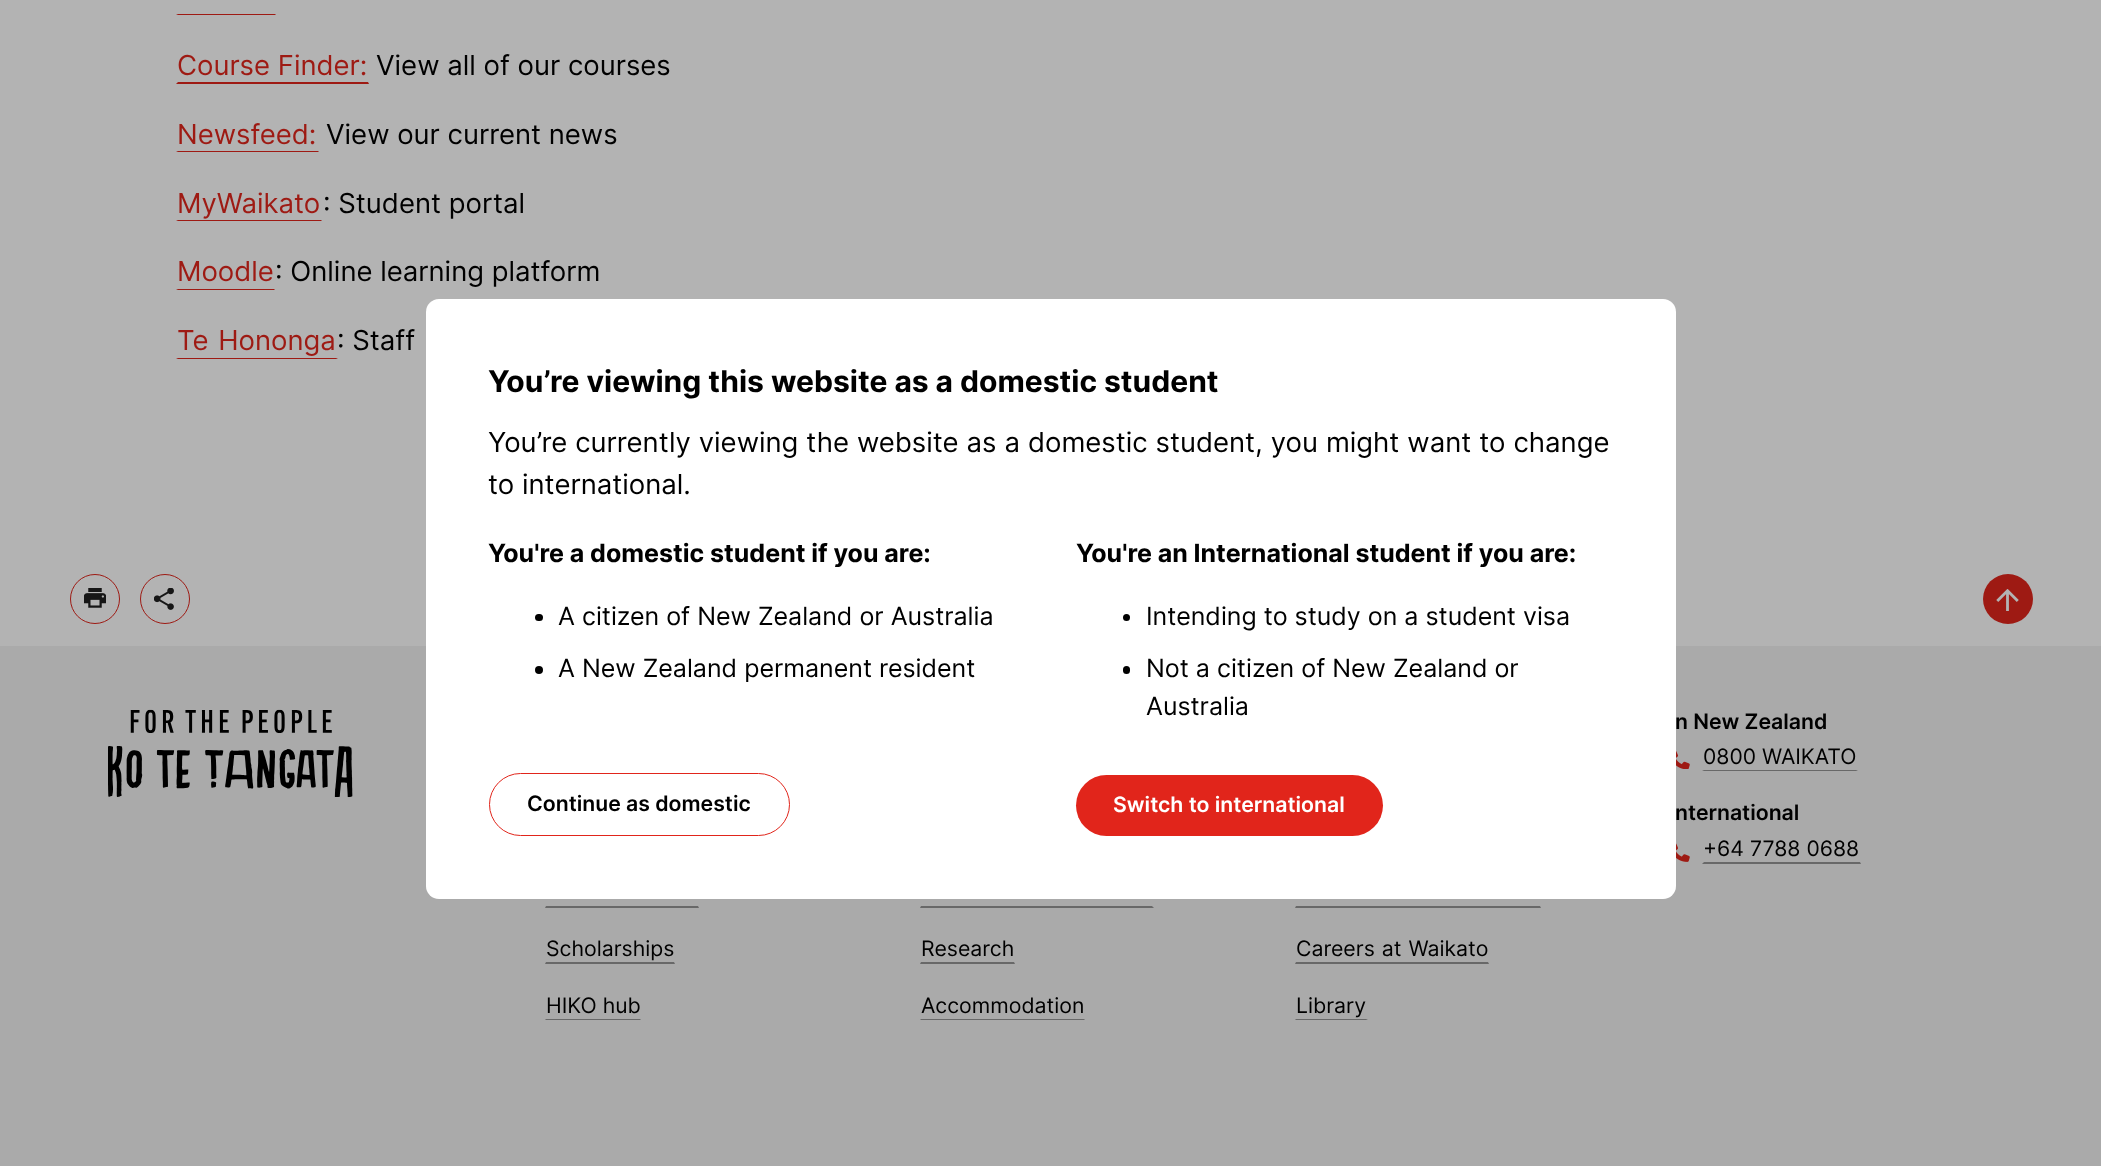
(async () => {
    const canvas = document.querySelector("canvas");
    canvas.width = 2101;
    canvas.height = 1166;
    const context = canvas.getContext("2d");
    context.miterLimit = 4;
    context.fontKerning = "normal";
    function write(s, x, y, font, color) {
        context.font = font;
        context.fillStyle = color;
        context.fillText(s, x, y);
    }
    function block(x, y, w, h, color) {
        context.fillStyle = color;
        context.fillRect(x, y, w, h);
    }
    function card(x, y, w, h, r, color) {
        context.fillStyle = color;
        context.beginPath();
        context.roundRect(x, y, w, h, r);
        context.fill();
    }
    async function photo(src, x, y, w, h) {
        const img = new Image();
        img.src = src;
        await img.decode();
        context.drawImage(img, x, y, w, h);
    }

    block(0, 0, 2101, 1166, "rgb(179, 179, 179)");
    context.fillStyle = "rgb(158, 26, 19)";
    context.beginPath();
    context.moveTo(276, 15);
    context.lineTo(176, 15);
    context.lineTo(178, 14);
    context.lineTo(275, 14);
    context.closePath();
    context.fill();
    write("Course Finder:", 177, 75, "27.5px Inter", "rgb(158, 26, 19)");
    context.beginPath();
    context.moveTo(369, 84);
    context.lineTo(176, 84);
    context.lineTo(178, 82);
    context.lineTo(368, 82);
    context.closePath();
    context.fill();
    write("View all of our courses", 376, 75, "27.5px Inter", "rgb(0, 0, 0)");
    write("Newsfeed:", 177, 144, "27.5px Inter", "rgb(158, 26, 19)");
    context.beginPath();
    context.moveTo(319, 152);
    context.lineTo(176, 152);
    context.lineTo(178, 151);
    context.lineTo(318, 151);
    context.closePath();
    context.fill();
    write("View our current news", 326, 144, "27.5px Inter", "rgb(0, 0, 0)");
    write("MyWaikato", 177, 213, "27.5px Inter", "rgb(158, 26, 19)");
    context.beginPath();
    context.moveTo(322, 221);
    context.lineTo(176, 221);
    context.lineTo(178, 220);
    context.lineTo(321, 220);
    context.closePath();
    context.fill();
    write(": Student portal", 323, 213, "27.5px Inter", "rgb(0, 0, 0)");
    write("Moodle", 177, 281, "27.5px Inter", "rgb(158, 26, 19)");
    context.beginPath();
    context.moveTo(275, 290);
    context.lineTo(176, 290);
    context.lineTo(178, 289);
    context.lineTo(274, 289);
    context.closePath();
    context.fill();
    write(": Online learning platform", 275, 281, "27.5px Inter", "rgb(0, 0, 0)");
    context.wordSpacing = "2px";
    write("Te Hononga", 177, 350, "27.5px Inter", "rgb(158, 26, 19)");
    context.beginPath();
    context.moveTo(338, 359);
    context.lineTo(176, 359);
    context.lineTo(178, 358);
    context.lineTo(336, 358);
    context.closePath();
    context.fill();
    context.wordSpacing = "0px";
    write(": Staff", 337, 350, "27.5px Inter", "rgb(0, 0, 0)");
    block(0, 646, 2101, 520, "rgb(170, 170, 170)");
    card(426, 299, 1250, 600, 13, "rgb(255, 255, 255)");
    write("You’re viewing this website as a domestic student", 488, 392, "bold 30px Inter", "rgb(0, 0, 0)");
    context.wordSpacing = "0.25px";
    write("You’re currently viewing the website as a domestic student, you might want to change", 488, 452, "27.5px Inter", "rgb(0, 0, 0)");
    context.wordSpacing = "0px";
    write("to international.", 488, 494, "27.5px Inter", "rgb(0, 0, 0)");
    write("You're a domestic student if you are:", 488, 562, "bold 25px Inter", "rgb(0, 0, 0)");
    card(535, 614, 8, 7, 3.5, "rgb(0, 0, 0)");
    write("A citizen of New Zealand or Australia", 558, 625, "25px Inter", "rgb(0, 0, 0)");
    context.beginPath();
    context.arc(539, 670, 4, 0, Math.PI * 2);
    context.fill();
    write("A New Zealand permanent resident", 558, 677, "25px Inter", "rgb(0, 0, 0)");
    context.beginPath();
    context.roundRect(489.5, 773.5, 300, 62, 31);
    context.strokeStyle = "rgb(225, 37, 27)";
    context.stroke();
    write("Continue as domestic", 527, 811, "600 21.25px Inter", "rgb(0, 0, 0)");
    write("You're an International student if you are:", 1076, 562, "bold 25px Inter", "rgb(0, 0, 0)");
    context.beginPath();
    context.arc(1126.5, 617.5, 3.5, 0, Math.PI * 2);
    context.fill();
    write("Intending to study on a student visa", 1146, 625, "25px Inter", "rgb(0, 0, 0)");
    card(1123, 666, 7, 8, 3.5, "rgb(0, 0, 0)");
    write("Not a citizen of New Zealand or", 1146, 677, "25px Inter", "rgb(0, 0, 0)");
    write("Australia", 1146, 715, "25px Inter", "rgb(0, 0, 0)");
    card(1076, 775, 307, 61, 30.5, "rgb(225, 37, 27)");
    write("Switch to international", 1113, 812, "600 21.25px Inter", "rgb(255, 255, 255)");
    context.beginPath();
    context.arc(95, 599, 24.5, 0, Math.PI * 2);
    context.strokeStyle = "rgb(158, 26, 19)";
    context.stroke();
    await photo("media/1.png", 84, 588, 22, 20);
    context.beginPath();
    context.arc(165, 599, 24.5, 0, Math.PI * 2);
    context.stroke();
    await photo("media/2.png", 154, 588, 20, 22);
    context.fillStyle = "rgb(158, 26, 19)";
    context.beginPath();
    context.arc(2008, 599, 25, 0, Math.PI * 2);
    context.fill();
    await photo("media/3.png", 1996, 589, 23, 22);
    await photo("media/4.png", 108, 709, 245, 89);
    write("n New Zealand", 1675, 729, "600 21.25px Inter", "rgb(0, 0, 0)");
    await photo("media/5.png", 1676, 751, 14, 18);
    write("0800 WAIKATO", 1703, 764, "21.25px Inter", "rgb(0, 0, 0)");
    context.fillStyle = "rgb(104, 104, 104)";
    context.beginPath();
    context.moveTo(1858, 771);
    context.lineTo(1702, 771);
    context.lineTo(1704, 770);
    context.lineTo(1856, 770);
    context.closePath();
    context.fill();
    write("nternational", 1675, 820, "600 21.25px Inter", "rgb(0, 0, 0)");
    await photo("media/6.png", 1676, 843, 14, 19);
    write("+64 7788 0688", 1703, 856, "21.25px Inter", "rgb(0, 0, 0)");
    context.fillStyle = "rgb(104, 104, 104)";
    context.beginPath();
    context.moveTo(1861, 864);
    context.lineTo(1702, 864);
    context.lineTo(1704, 862);
    context.lineTo(1860, 862);
    context.closePath();
    context.fill();
    context.beginPath();
    context.moveTo(699, 908);
    context.lineTo(545, 908);
    context.lineTo(546, 906);
    context.lineTo(698, 906);
    context.closePath();
    context.fill();
    write("Scholarships", 546, 956, "21.25px Inter", "rgb(0, 0, 0)");
    context.fillStyle = "rgb(104, 104, 104)";
    context.beginPath();
    context.moveTo(675, 964);
    context.lineTo(545, 964);
    context.lineTo(546, 962);
    context.lineTo(674, 962);
    context.closePath();
    context.fill();
    write("HIKO hub", 546, 1013, "21.25px Inter", "rgb(0, 0, 0)");
    context.fillStyle = "rgb(104, 104, 104)";
    context.beginPath();
    context.moveTo(641, 1020);
    context.lineTo(545, 1020);
    context.lineTo(546, 1019);
    context.lineTo(640, 1019);
    context.closePath();
    context.fill();
    context.beginPath();
    context.moveTo(1154, 908);
    context.lineTo(920, 908);
    context.lineTo(921, 906);
    context.lineTo(1152, 906);
    context.closePath();
    context.fill();
    write("Research", 921, 956, "21.25px Inter", "rgb(0, 0, 0)");
    context.fillStyle = "rgb(104, 104, 104)";
    context.beginPath();
    context.moveTo(1015, 964);
    context.lineTo(920, 964);
    context.lineTo(921, 962);
    context.lineTo(1014, 962);
    context.closePath();
    context.fill();
    write("Accommodation", 921, 1013, "21.25px Inter", "rgb(0, 0, 0)");
    context.fillStyle = "rgb(104, 104, 104)";
    context.beginPath();
    context.moveTo(1085, 1020);
    context.lineTo(920, 1020);
    context.lineTo(921, 1019);
    context.lineTo(1084, 1019);
    context.closePath();
    context.fill();
    context.beginPath();
    context.moveTo(1541, 908);
    context.lineTo(1295, 908);
    context.lineTo(1296, 906);
    context.lineTo(1540, 906);
    context.closePath();
    context.fill();
    context.wordSpacing = "1px";
    write("Careers at Waikato", 1296, 956, "21.25px Inter", "rgb(0, 0, 0)");
    context.fillStyle = "rgb(104, 104, 104)";
    context.beginPath();
    context.moveTo(1489, 964);
    context.lineTo(1295, 964);
    context.lineTo(1296, 962);
    context.lineTo(1488, 962);
    context.closePath();
    context.fill();
    context.wordSpacing = "0px";
    write("Library", 1296, 1013, "21.25px Inter", "rgb(0, 0, 0)");
    context.fillStyle = "rgb(104, 104, 104)";
    context.beginPath();
    context.moveTo(1368, 1020);
    context.lineTo(1295, 1020);
    context.lineTo(1296, 1019);
    context.lineTo(1366, 1019);
    context.closePath();
    context.fill();
})();
